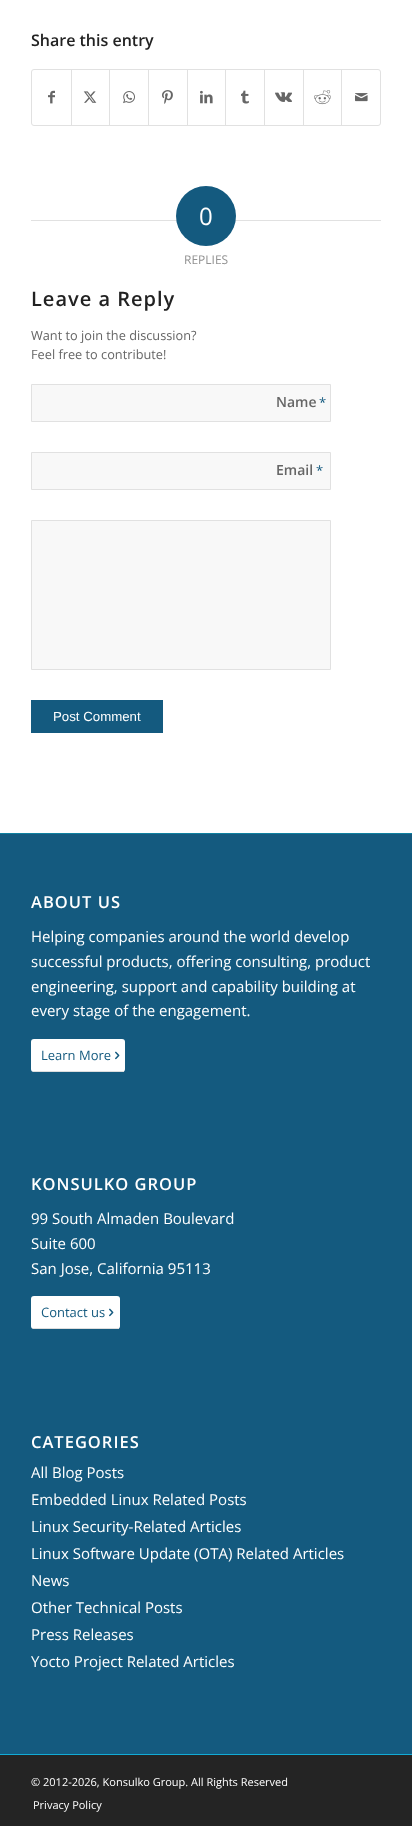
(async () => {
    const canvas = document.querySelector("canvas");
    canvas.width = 412;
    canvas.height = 1826;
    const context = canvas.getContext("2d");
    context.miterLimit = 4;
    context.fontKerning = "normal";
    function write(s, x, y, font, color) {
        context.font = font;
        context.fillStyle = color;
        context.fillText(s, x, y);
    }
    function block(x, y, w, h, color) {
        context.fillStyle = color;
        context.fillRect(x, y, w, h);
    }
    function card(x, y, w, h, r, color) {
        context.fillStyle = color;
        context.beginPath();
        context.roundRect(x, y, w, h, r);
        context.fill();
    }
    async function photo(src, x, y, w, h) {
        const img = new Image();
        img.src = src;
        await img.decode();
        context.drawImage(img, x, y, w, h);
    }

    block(0, 0, 412, 1826, "rgb(255, 255, 255)");
    write("Share this entry", 31, 46, "600 16px Open Sans", "rgb(34, 34, 34)");
    context.beginPath();
    context.roundRect(31.5, 69.5, 349, 56, 2.5);
    context.strokeStyle = "rgb(225, 225, 225)";
    context.stroke();
    await photo("media/1.png", 48, 90, 7, 14);
    block(71, 70, 1, 55, "rgb(225, 225, 225)");
    await photo("media/2.png", 83, 91, 14, 12);
    block(109, 70, 1, 55, "rgb(225, 225, 225)");
    await photo("media/3.png", 123, 91, 12, 13);
    block(148, 70, 1, 55, "rgb(225, 225, 225)");
    await photo("media/4.png", 162, 90, 11, 14);
    block(187, 70, 1, 55, "rgb(225, 225, 225)");
    await photo("media/5.png", 200, 90, 13, 14);
    block(225, 70, 1, 55, "rgb(225, 225, 225)");
    await photo("media/6.png", 241, 90, 8, 14);
    block(264, 70, 1, 55, "rgb(225, 225, 225)");
    await photo("media/7.png", 275, 92, 17, 10);
    block(303, 70, 1, 55, "rgb(225, 225, 225)");
    await photo("media/8.png", 314, 90, 17, 15);
    block(341, 70, 1, 55, "rgb(225, 225, 225)");
    await photo("media/9.png", 355, 93, 13, 9);
    block(31, 220, 147, 1, "rgb(225, 225, 225)");
    block(234, 220, 147, 1, "rgb(225, 225, 225)");
    context.fillStyle = "rgb(20, 90, 127)";
    context.beginPath();
    context.arc(206, 216, 30, 0, Math.PI * 2);
    context.fill();
    write("0", 199, 225, "24px Open Sans", "rgb(255, 255, 255)");
    write("REPLIES", 184, 264, "12px Open Sans", "rgb(145, 145, 145)");
    context.letterSpacing = "1px";
    write("Leave a Reply", 31, 306, "600 20px Open Sans", "rgb(34, 34, 34)");
    context.letterSpacing = "0px";
    write("Want to join the discussion?", 31, 340, "12.75px Open Sans", "rgb(102, 102, 102)");
    write("Feel free to contribute!", 31, 359, "12.75px Open Sans", "rgb(102, 102, 102)");
    context.fillStyle = "rgb(248, 248, 248)";
    context.beginPath();
    context.rect(31.5, 384.5, 299, 37);
    context.fill();
    context.stroke();
    write("Name", 276, 407, "600 14px Open Sans", "rgb(102, 102, 102)");
    write("*", 319, 407, "13px Open Sans", "rgb(20, 90, 127)");
    context.fillStyle = "rgb(248, 248, 248)";
    context.beginPath();
    context.rect(31.5, 452.5, 299, 37);
    context.fill();
    context.stroke();
    write("Email", 276, 475, "600 14px Open Sans", "rgb(102, 102, 102)");
    write("*", 316, 475, "13px Open Sans", "rgb(20, 90, 127)");
    context.fillStyle = "rgb(248, 248, 248)";
    context.beginPath();
    context.rect(31.5, 520.5, 299, 149);
    context.fill();
    context.stroke();
    block(31, 700, 132, 33, "rgb(20, 90, 127)");
    write("Post Comment", 53, 721, "13.25px Liberation Sans", "rgb(255, 255, 255)");
    block(0, 834, 412, 920, "rgb(20, 90, 127)");
    block(0, 833, 412, 1, "rgb(15, 129, 161)");
    context.letterSpacing = "1px";
    write("ABOUT US", 31, 908, "600 16.5px Open Sans", "rgb(255, 255, 255)");
    context.letterSpacing = "0px";
    write("Helping companies around the world develop", 31, 942, "15px Open Sans", "rgb(255, 255, 255)");
    write("successful products, offering consulting, product", 31, 967, "15px Open Sans", "rgb(255, 255, 255)");
    write("engineering, support and capability building at", 31, 992, "15px Open Sans", "rgb(255, 255, 255)");
    write("every stage of the engagement.", 31, 1016, "15px Open Sans", "rgb(255, 255, 255)");
    card(31, 1039, 94, 33, 3, "rgb(255, 255, 255)");
    block(33, 1071, 91, 1, "rgb(221, 221, 221)");
    write("Learn More", 41, 1060, "13px Open Sans", "rgb(20, 90, 127)");
    await photo("media/10.png", 115, 1051, 5, 9);
    context.letterSpacing = "1px";
    write("KONSULKO GROUP", 31, 1190, "600 16.5px Open Sans", "rgb(255, 255, 255)");
    context.letterSpacing = "0px";
    write("99 South Almaden Boulevard", 31, 1224, "15px Open Sans", "rgb(255, 255, 255)");
    write("Suite 600", 31, 1249, "15px Open Sans", "rgb(255, 255, 255)");
    write("San Jose, California 95113", 31, 1274, "15px Open Sans", "rgb(255, 255, 255)");
    card(31, 1296, 89, 33, 3, "rgb(255, 255, 255)");
    block(33, 1328, 86, 1, "rgb(221, 221, 221)");
    write("Contact us", 41, 1317, "13px Open Sans", "rgb(20, 90, 127)");
    await photo("media/10.png", 109, 1308, 5, 9);
    context.letterSpacing = "1px";
    write("CATEGORIES", 31, 1448, "600 16.5px Open Sans", "rgb(255, 255, 255)");
    context.letterSpacing = "0px";
    write("All Blog Posts", 31, 1478, "15px Open Sans", "rgb(255, 255, 255)");
    write("Embedded Linux Related Posts", 31, 1505, "15px Open Sans", "rgb(255, 255, 255)");
    write("Linux Security-Related Articles", 31, 1532, "15px Open Sans", "rgb(255, 255, 255)");
    write("Linux Software Update (OTA) Related Articles", 31, 1559, "15px Open Sans", "rgb(255, 255, 255)");
    write("News", 31, 1586, "15px Open Sans", "rgb(255, 255, 255)");
    write("Other Technical Posts", 31, 1613, "15px Open Sans", "rgb(255, 255, 255)");
    write("Press Releases", 31, 1640, "15px Open Sans", "rgb(255, 255, 255)");
    write("Yocto Project Related Articles", 31, 1667, "15px Open Sans", "rgb(255, 255, 255)");
    block(0, 1755, 412, 71, "rgb(36, 36, 36)");
    block(0, 1754, 412, 1, "rgb(17, 171, 214)");
    write("© 2012-2026, Konsulko Group. All Rights Reserved", 31, 1786, "11px Open Sans", "rgb(255, 255, 255)");
    write("Privacy Policy", 33, 1809, "11px Open Sans", "rgb(255, 255, 255)");
})();
